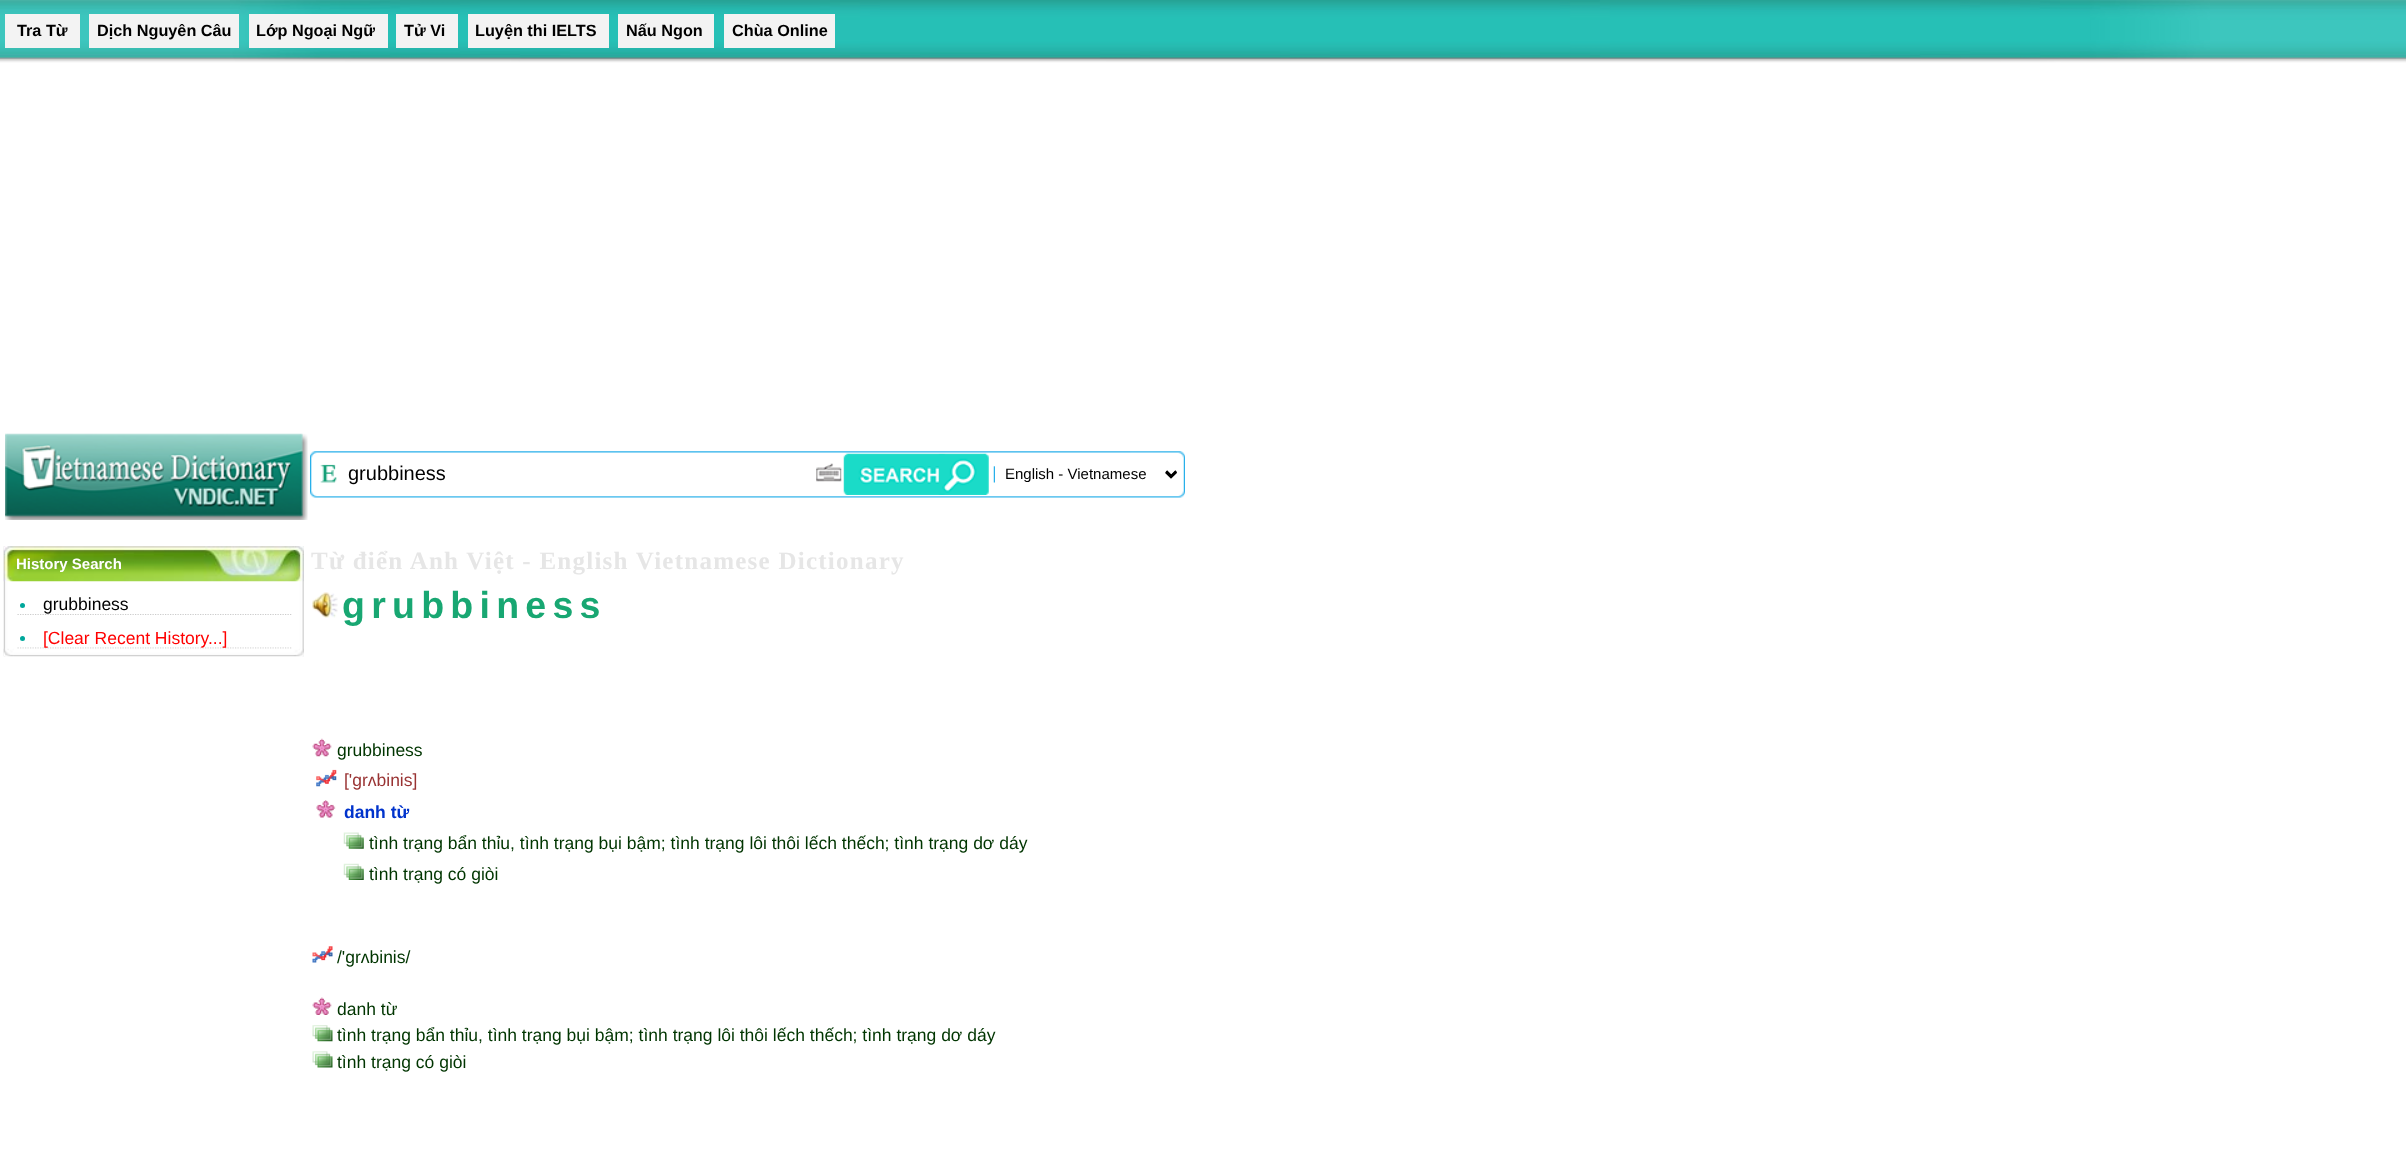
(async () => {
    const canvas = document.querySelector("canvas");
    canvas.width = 2406;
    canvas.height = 1152;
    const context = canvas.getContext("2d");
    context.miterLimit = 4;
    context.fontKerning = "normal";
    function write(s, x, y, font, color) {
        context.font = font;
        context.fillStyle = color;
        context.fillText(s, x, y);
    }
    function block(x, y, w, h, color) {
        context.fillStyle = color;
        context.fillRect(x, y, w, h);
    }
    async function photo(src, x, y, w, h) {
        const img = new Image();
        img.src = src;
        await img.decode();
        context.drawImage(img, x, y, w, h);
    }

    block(0, 0, 2406, 1152, "rgb(255, 255, 255)");
    await photo("media/1.png", 0, 0, 2406, 63);
    block(5, 14, 75, 34, "rgb(243, 243, 243)");
    write("Tra Từ", 17, 36, "bold 16.25px Liberation Sans", "rgb(0, 0, 0)");
    block(89, 14, 150, 34, "rgb(243, 243, 243)");
    write("Dịch Nguyên Câu", 97, 36, "bold 16.25px Liberation Sans", "rgb(0, 0, 0)");
    block(249, 14, 139, 34, "rgb(243, 243, 243)");
    write("Lớp Ngoại Ngữ", 256, 36, "bold 16.25px Liberation Sans", "rgb(0, 0, 0)");
    block(396, 14, 62, 34, "rgb(243, 243, 243)");
    write("Tử Vi", 404, 36, "bold 16.25px Liberation Sans", "rgb(0, 0, 0)");
    block(468, 14, 141, 34, "rgb(243, 243, 243)");
    write("Luyện thi IELTS", 475, 36, "bold 16.25px Liberation Sans", "rgb(0, 0, 0)");
    block(618, 14, 96, 34, "rgb(243, 243, 243)");
    write("Nấu Ngon", 626, 36, "bold 16.25px Liberation Sans", "rgb(0, 0, 0)");
    block(724, 14, 111, 34, "rgb(243, 243, 243)");
    write("Chùa Online", 732, 36, "bold 16.25px Liberation Sans", "rgb(0, 0, 0)");
    await photo("media/2.png", 5, 433, 303, 87);
    await photo("media/3.png", 310, 451, 875, 47);
    await photo("media/4.png", 320, 464, 17, 19);
    write("grubbiness", 348, 480, "20px Liberation Sans", "rgb(0, 0, 0)");
    await photo("media/5.png", 816, 463, 26, 19);
    await photo("media/6.png", 843, 453, 146, 42);
    await photo("media/7.png", 993, 466, 184, 17);
    context.beginPath();
    context.moveTo(1166, 472);
    context.lineTo(1171, 477);
    context.lineTo(1176, 472);
    context.strokeStyle = "rgb(0, 0, 0)";
    context.lineWidth = 2.5;
    context.stroke();
    write("English - Vietnamese", 1005, 479, "15px Liberation Sans", "rgb(0, 0, 0)");
    await photo("media/8.png", 3, 546, 301, 111);
    await photo("media/9.png", 3, 546, 301, 36);
    write("History Search", 16, 569, "bold 15px Liberation Sans", "rgb(255, 255, 255)");
    context.beginPath();
    context.moveTo(17.5, 614.5);
    context.lineTo(292.5, 614.5);
    context.strokeStyle = "rgb(204, 204, 204)";
    context.lineWidth = 1.2;
    context.setLineDash([1.25, 1.25]);
    context.stroke();
    context.fillStyle = "rgb(0, 167, 155)";
    context.beginPath();
    context.arc(22.5, 605.5, 2.5, 0, Math.PI * 2);
    context.fill();
    write("grubbiness", 43, 610, "17.5px Liberation Sans", "rgb(0, 0, 0)");
    context.beginPath();
    context.moveTo(17.5, 648);
    context.lineTo(292.5, 648);
    context.stroke();
    context.fillStyle = "rgb(0, 167, 155)";
    context.beginPath();
    context.arc(22.5, 638.5, 2.5, 0, Math.PI * 2);
    context.fill();
    write("[Clear Recent History...]", 43, 644, "17.5px Liberation Sans", "rgb(255, 0, 0)");
    await photo("media/10.png", 3, 648, 301, 9);
    context.letterSpacing = "1.25px";
    write("Từ điển Anh Việt - English Vietnamese Dictionary", 311, 569, "bold 25px Liberation Serif", "rgb(230, 230, 230)");
    await photo("media/11.png", 312, 592, 26, 26);
    context.letterSpacing = "6.25px";
    write("grubbiness", 342, 618, "bold 37.5px Liberation Sans", "rgb(24, 167, 114)");
    await photo("media/12.png", 312, 738, 20, 19);
    context.letterSpacing = "0px";
    write("grubbiness", 337, 756, "17.5px Liberation Sans", "rgb(0, 53, 0)");
    await photo("media/13.png", 316, 769, 21, 18);
    write("['grʌbinis]", 344, 786, "17.5px Liberation Sans", "rgb(153, 51, 51)");
    await photo("media/14.png", 316, 800, 20, 18);
    write("danh từ", 344, 818, "bold 17.5px Liberation Sans", "rgb(0, 51, 204)");
    await photo("media/15.png", 343, 832, 21, 17);
    write("tình trạng bẩn thỉu, tình trạng bụi bậm; tình trạng lôi thôi lếch thếch; tình trạng dơ dáy", 369, 849, "17.5px Liberation Sans", "rgb(0, 53, 0)");
    await photo("media/16.png", 343, 863, 21, 17);
    write("tình trạng có giòi", 369, 880, "17.5px Liberation Sans", "rgb(0, 53, 0)");
    await photo("media/17.png", 312, 946, 21, 17);
    write("/'grʌbinis/", 337, 963, "17.5px Liberation Sans", "rgb(0, 53, 0)");
    await photo("media/18.png", 312, 997, 20, 18);
    write("danh từ", 337, 1015, "17.5px Liberation Sans", "rgb(0, 53, 0)");
    await photo("media/19.png", 312, 1025, 21, 17);
    write("tình trạng bẩn thỉu, tình trạng bụi bậm; tình trạng lôi thôi lếch thếch; tình trạng dơ dáy", 337, 1041, "17.5px Liberation Sans", "rgb(0, 53, 0)");
    await photo("media/20.png", 312, 1051, 21, 17);
    write("tình trạng có giòi", 337, 1068, "17.5px Liberation Sans", "rgb(0, 53, 0)");
})();
